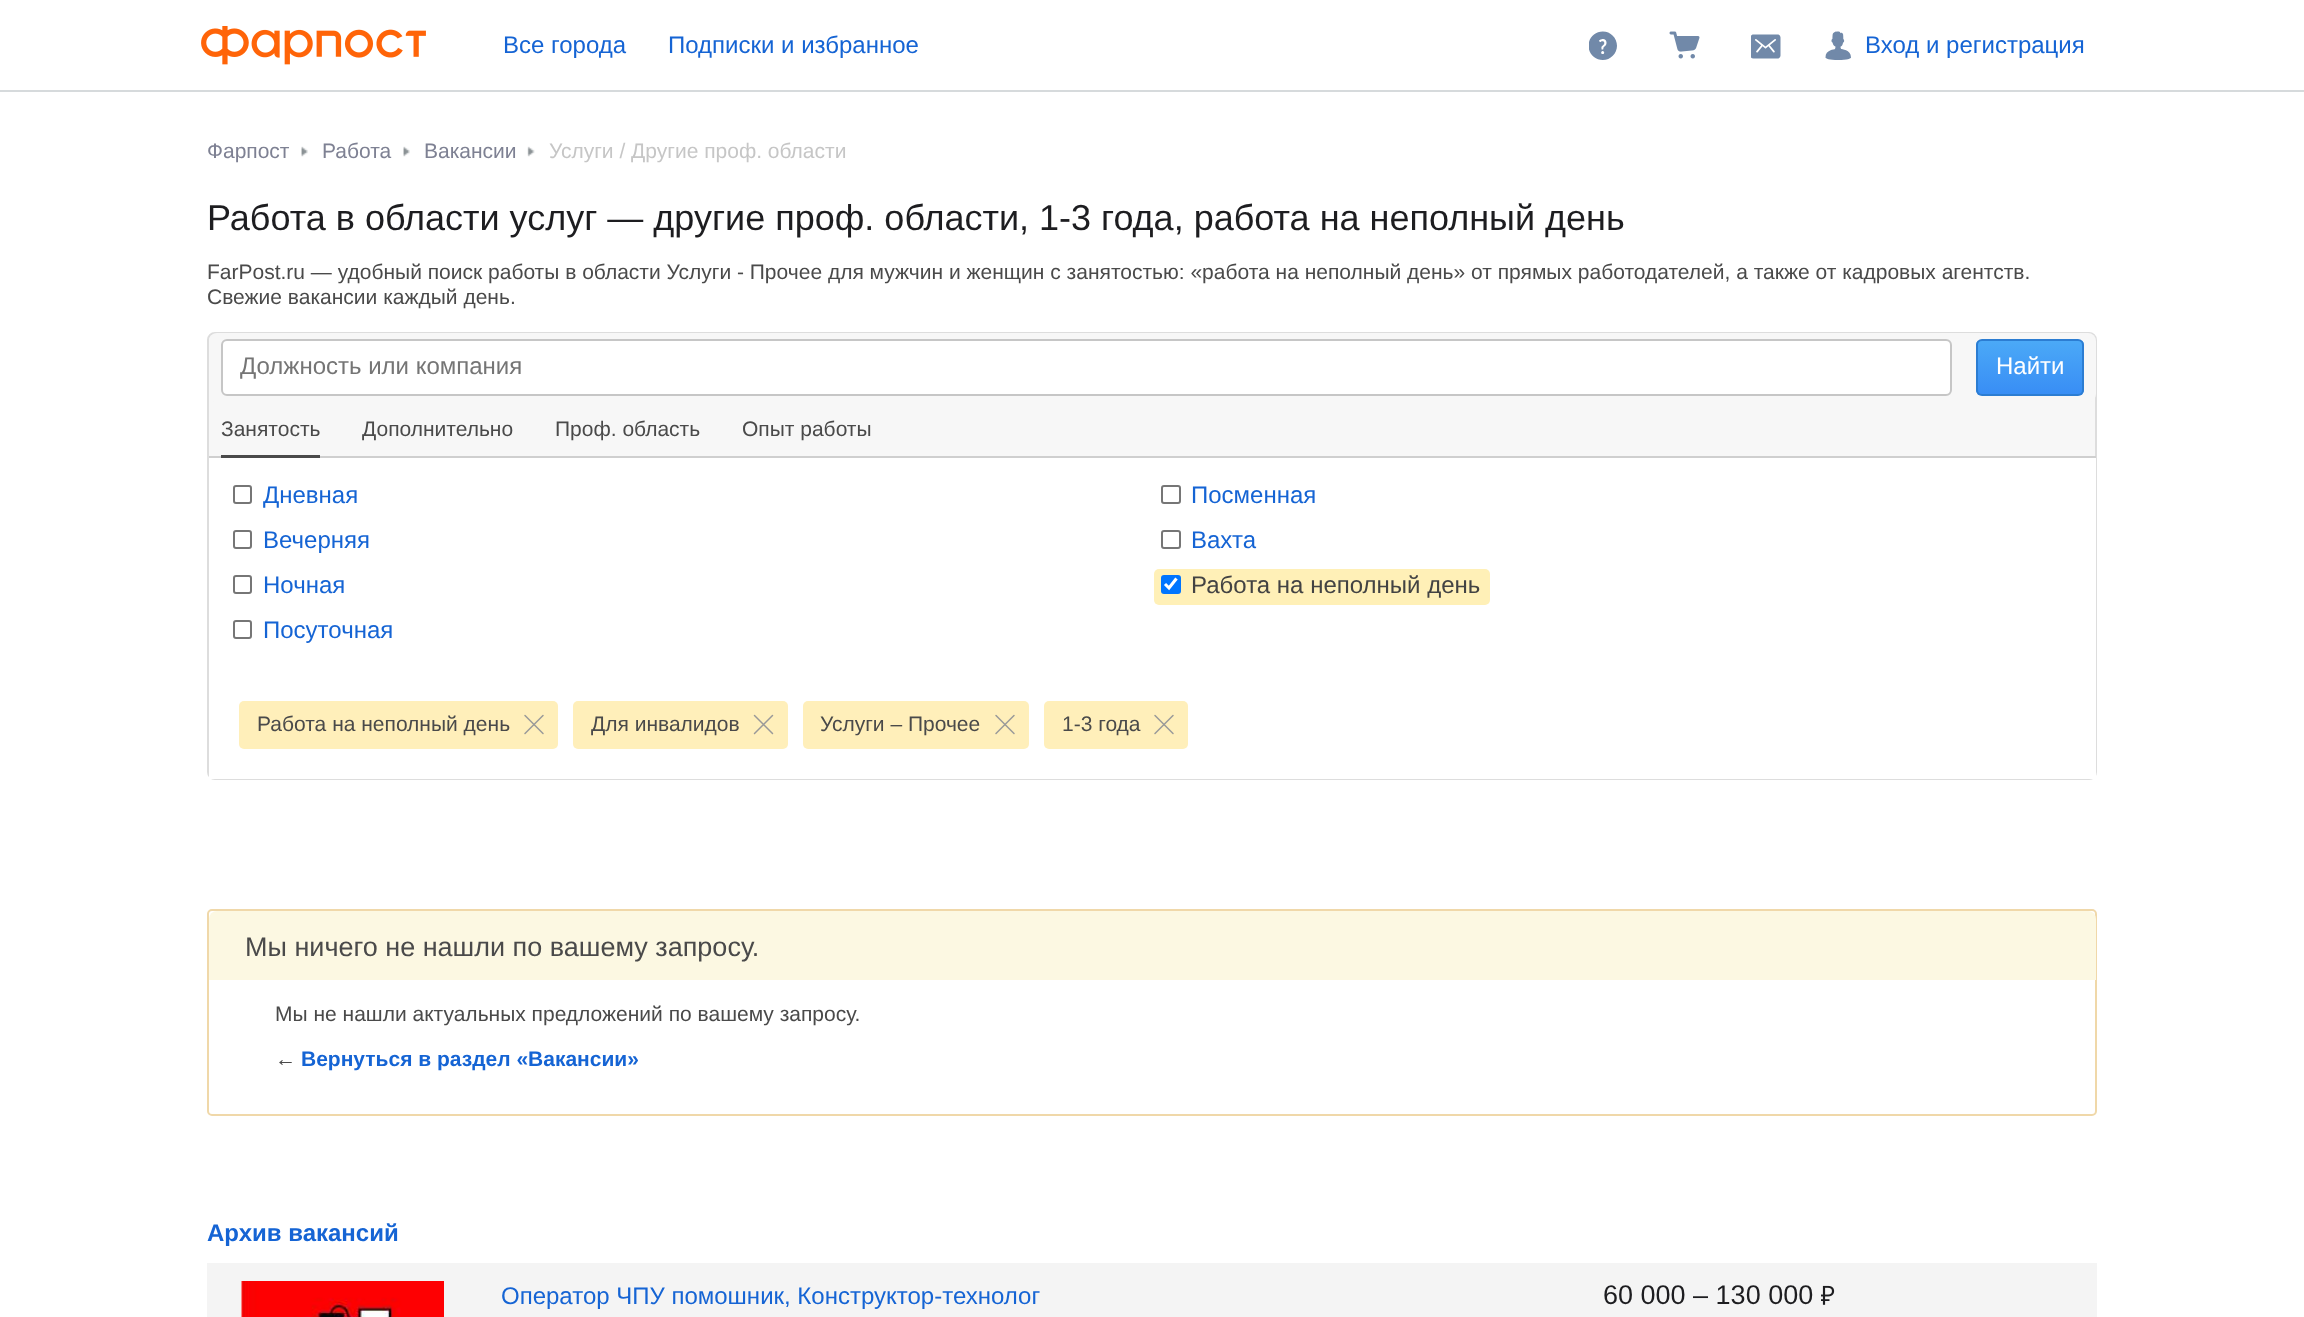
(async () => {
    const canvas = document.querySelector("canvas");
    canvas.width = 2304;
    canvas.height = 1317;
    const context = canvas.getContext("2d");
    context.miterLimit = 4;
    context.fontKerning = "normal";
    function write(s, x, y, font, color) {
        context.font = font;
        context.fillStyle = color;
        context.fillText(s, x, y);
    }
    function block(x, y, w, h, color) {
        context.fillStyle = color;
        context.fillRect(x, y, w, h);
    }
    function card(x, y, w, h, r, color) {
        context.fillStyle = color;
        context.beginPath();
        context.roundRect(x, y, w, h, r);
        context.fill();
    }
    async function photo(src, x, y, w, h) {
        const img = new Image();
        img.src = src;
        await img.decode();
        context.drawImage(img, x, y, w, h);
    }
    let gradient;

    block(0, 0, 2304, 1317, "rgb(255, 255, 255)");
    block(0, 90, 2304, 2, "rgb(214, 218, 220)");
    await photo("media/1.png", 201, 26, 225, 39);
    write("Все города", 503, 53, "24px Liberation Sans", "rgb(21, 100, 212)");
    write("Подписки и избранное", 668, 53, "24px Liberation Sans", "rgb(21, 100, 212)");
    await photo("media/2.png", 1589, 31, 28, 29);
    await photo("media/3.png", 1669, 31, 31, 28);
    await photo("media/4.png", 1751, 34, 30, 25);
    await photo("media/5.png", 1825, 31, 26, 29);
    write("Вход и регистрация", 1865, 53, "24px Liberation Sans", "rgb(21, 100, 212)");
    write("Фарпост", 207, 158, "21px Liberation Sans", "rgb(126, 129, 147)");
    await photo("media/6.png", 301, 146, 7, 11);
    write("Работа", 322, 158, "21px Liberation Sans", "rgb(126, 129, 147)");
    await photo("media/6.png", 403, 146, 7, 11);
    write("Вакансии", 424, 158, "21px Liberation Sans", "rgb(126, 129, 147)");
    await photo("media/7.png", 527, 146, 8, 11);
    write("Услуги / Другие проф. области", 549, 158, "21px Liberation Sans", "rgb(198, 198, 198)");
    write("Работа в области услуг — другие проф. области, 1-3 года, работа на неполный день", 207, 230, "36px Liberation Sans", "rgb(29, 29, 32)");
    write("FarPost.ru — удобный поиск работы в области Услуги - Прочее для мужчин и женщин с занятостью: «работа на неполный день» от прямых работодателей, а также от кадровых агентств.", 207, 279, "21px Liberation Sans", "rgb(74, 74, 74)");
    write("Свежие вакансии каждый день.", 207, 304, "21px Liberation Sans", "rgb(74, 74, 74)");
    context.fillStyle = "rgb(247, 247, 247)";
    context.beginPath();
    context.roundRect(208, 333, 1888, 446, 7);
    context.fill();
    context.strokeStyle = "rgb(221, 221, 221)";
    context.lineWidth = 2;
    context.stroke();
    card(209, 333, 1887, 69, 8, "rgb(247, 247, 247)");
    context.fillStyle = "rgb(255, 255, 255)";
    context.beginPath();
    context.roundRect(222, 340, 1729, 55, 5);
    context.fill();
    context.strokeStyle = "rgb(198, 198, 198)";
    context.stroke();
    write("Должность или компания", 240, 374, "24px Liberation Sans", "rgb(117, 117, 117)");
    context.save();
    context.beginPath();
    context.roundRect(1976, 339, 108, 57, 6);
    context.clip();
    gradient = context.createLinearGradient(2030, 341, 2030, 395);
    gradient.addColorStop(0, "rgb(75, 169, 247)");
    gradient.addColorStop(1, "rgb(56, 141, 245)");
    context.fillStyle = gradient;
    context.fillRect(1976, 341, 108, 54);
    context.restore();
    context.beginPath();
    context.roundRect(1977, 340, 106, 55, 5);
    context.strokeStyle = "rgb(44, 125, 210)";
    context.stroke();
    write("Найти", 1996, 374, "24px Liberation Sans", "rgb(255, 255, 255)");
    block(209, 456, 1887, 2, "rgb(207, 207, 207)");
    block(221, 455, 99, 3, "rgb(74, 74, 74)");
    write("Занятость", 221, 436, "21px Liberation Sans", "rgb(74, 74, 74)");
    write("Дополнительно", 362, 436, "21px Liberation Sans", "rgb(74, 74, 74)");
    write("Проф. область", 555, 436, "21px Liberation Sans", "rgb(74, 74, 74)");
    write("Опыт работы", 742, 436, "21px Liberation Sans", "rgb(74, 74, 74)");
    block(209, 458, 1887, 321, "rgb(255, 255, 255)");
    context.beginPath();
    context.roundRect(234, 486, 17, 17, 2);
    context.strokeStyle = "rgb(118, 118, 118)";
    context.stroke();
    write("Дневная", 263, 503, "24px Liberation Sans", "rgb(21, 100, 212)");
    context.beginPath();
    context.roundRect(234, 531, 17, 17, 2);
    context.stroke();
    write("Вечерняя", 263, 548, "24px Liberation Sans", "rgb(21, 100, 212)");
    context.beginPath();
    context.roundRect(234, 576, 17, 17, 2);
    context.stroke();
    write("Ночная", 263, 593, "24px Liberation Sans", "rgb(21, 100, 212)");
    context.beginPath();
    context.roundRect(234, 621, 17, 17, 2);
    context.stroke();
    write("Посуточная", 263, 638, "24px Liberation Sans", "rgb(21, 100, 212)");
    context.beginPath();
    context.roundRect(1162, 486, 18, 17, 2);
    context.stroke();
    write("Посменная", 1191, 503, "24px Liberation Sans", "rgb(21, 100, 212)");
    context.beginPath();
    context.roundRect(1162, 531, 18, 17, 2);
    context.stroke();
    write("Вахта", 1191, 548, "24px Liberation Sans", "rgb(21, 100, 212)");
    card(1154, 569, 336, 36, 5, "rgb(255, 240, 183)");
    card(1161, 575, 20, 19, 3, "rgb(0, 117, 255)");
    context.beginPath();
    context.moveTo(1165, 584);
    context.lineTo(1169, 588);
    context.lineTo(1176.5, 578.5);
    context.strokeStyle = "rgb(255, 255, 255)";
    context.lineWidth = 3.1;
    context.stroke();
    write("Работа на неполный день", 1191, 593, "24px Liberation Sans", "rgb(67, 67, 67)");
    card(239, 701, 319, 48, 5, "rgb(255, 239, 186)");
    write("Работа на неполный день", 257, 731, "21px Liberation Sans", "rgb(74, 74, 74)");
    context.beginPath();
    context.moveTo(525, 715.5);
    context.lineTo(543, 733.5);
    context.moveTo(543, 715.5);
    context.lineTo(525, 733.5);
    context.strokeStyle = "rgb(153, 153, 153)";
    context.lineWidth = 1.5;
    context.lineCap = "round";
    context.stroke();
    card(573, 701, 215, 48, 5, "rgb(255, 239, 186)");
    context.save();
    context.beginPath();
    context.rect(591, 710, 149, 30);
    context.clip();
    write("Для инвалидов", 591, 731, "21px Liberation Sans", "rgb(74, 74, 74)");
    context.restore();
    context.beginPath();
    context.moveTo(754.5, 715.5);
    context.lineTo(772.5, 733.5);
    context.moveTo(772.5, 715.5);
    context.lineTo(754.5, 733.5);
    context.stroke();
    card(803, 701, 226, 48, 5, "rgb(255, 239, 186)");
    write("Услуги – Прочее", 820, 731, "21px Liberation Sans", "rgb(74, 74, 74)");
    context.beginPath();
    context.moveTo(996, 715.5);
    context.lineTo(1014, 733.5);
    context.moveTo(1014, 715.5);
    context.lineTo(996, 733.5);
    context.stroke();
    card(1044, 701, 144, 48, 5, "rgb(255, 239, 186)");
    write("1-3 года", 1062, 731, "21px Liberation Sans", "rgb(74, 74, 74)");
    context.beginPath();
    context.moveTo(1155, 715.5);
    context.lineTo(1173, 733.5);
    context.moveTo(1173, 715.5);
    context.lineTo(1155, 733.5);
    context.stroke();
    context.beginPath();
    context.roundRect(208, 910, 1888, 205, 4);
    context.strokeStyle = "rgb(240, 216, 169)";
    context.lineWidth = 2;
    context.stroke();
    context.fillStyle = "rgb(252, 248, 226)";
    context.beginPath();
    context.roundRect(209, 911, 1887, 69, [8, 8, 0, 0]);
    context.fill();
    write("Мы ничего не нашли по вашему запросу.", 245, 956, "27px Liberation Sans", "rgb(74, 74, 74)");
    write("Мы не нашли актуальных предложений по вашему запросу.", 275, 1021, "21px Liberation Sans", "rgb(74, 74, 74)");
    write("←", 275, 1066, "bold 21px Liberation Sans", "rgb(74, 74, 74)");
    write("Вернуться в раздел «Вакансии»", 301, 1066, "bold 21px Liberation Sans", "rgb(21, 100, 212)");
    write("Архив вакансий", 207, 1241, "bold 24px Liberation Sans", "rgb(21, 100, 212)");
    block(207, 1263, 1890, 54, "rgb(244, 244, 244)");
    await photo("media/8.png", 241, 1281, 203, 36);
    write("Оператор ЧПУ помошник, Конструктор-технолог", 501, 1304, "24px Liberation Sans", "rgb(21, 100, 212)");
    write("60 000 – 130 000", 1603, 1304, "27px Liberation Sans", "rgb(29, 29, 32)");
    await photo("media/9.png", 1821, 1285, 14, 20);
})();
